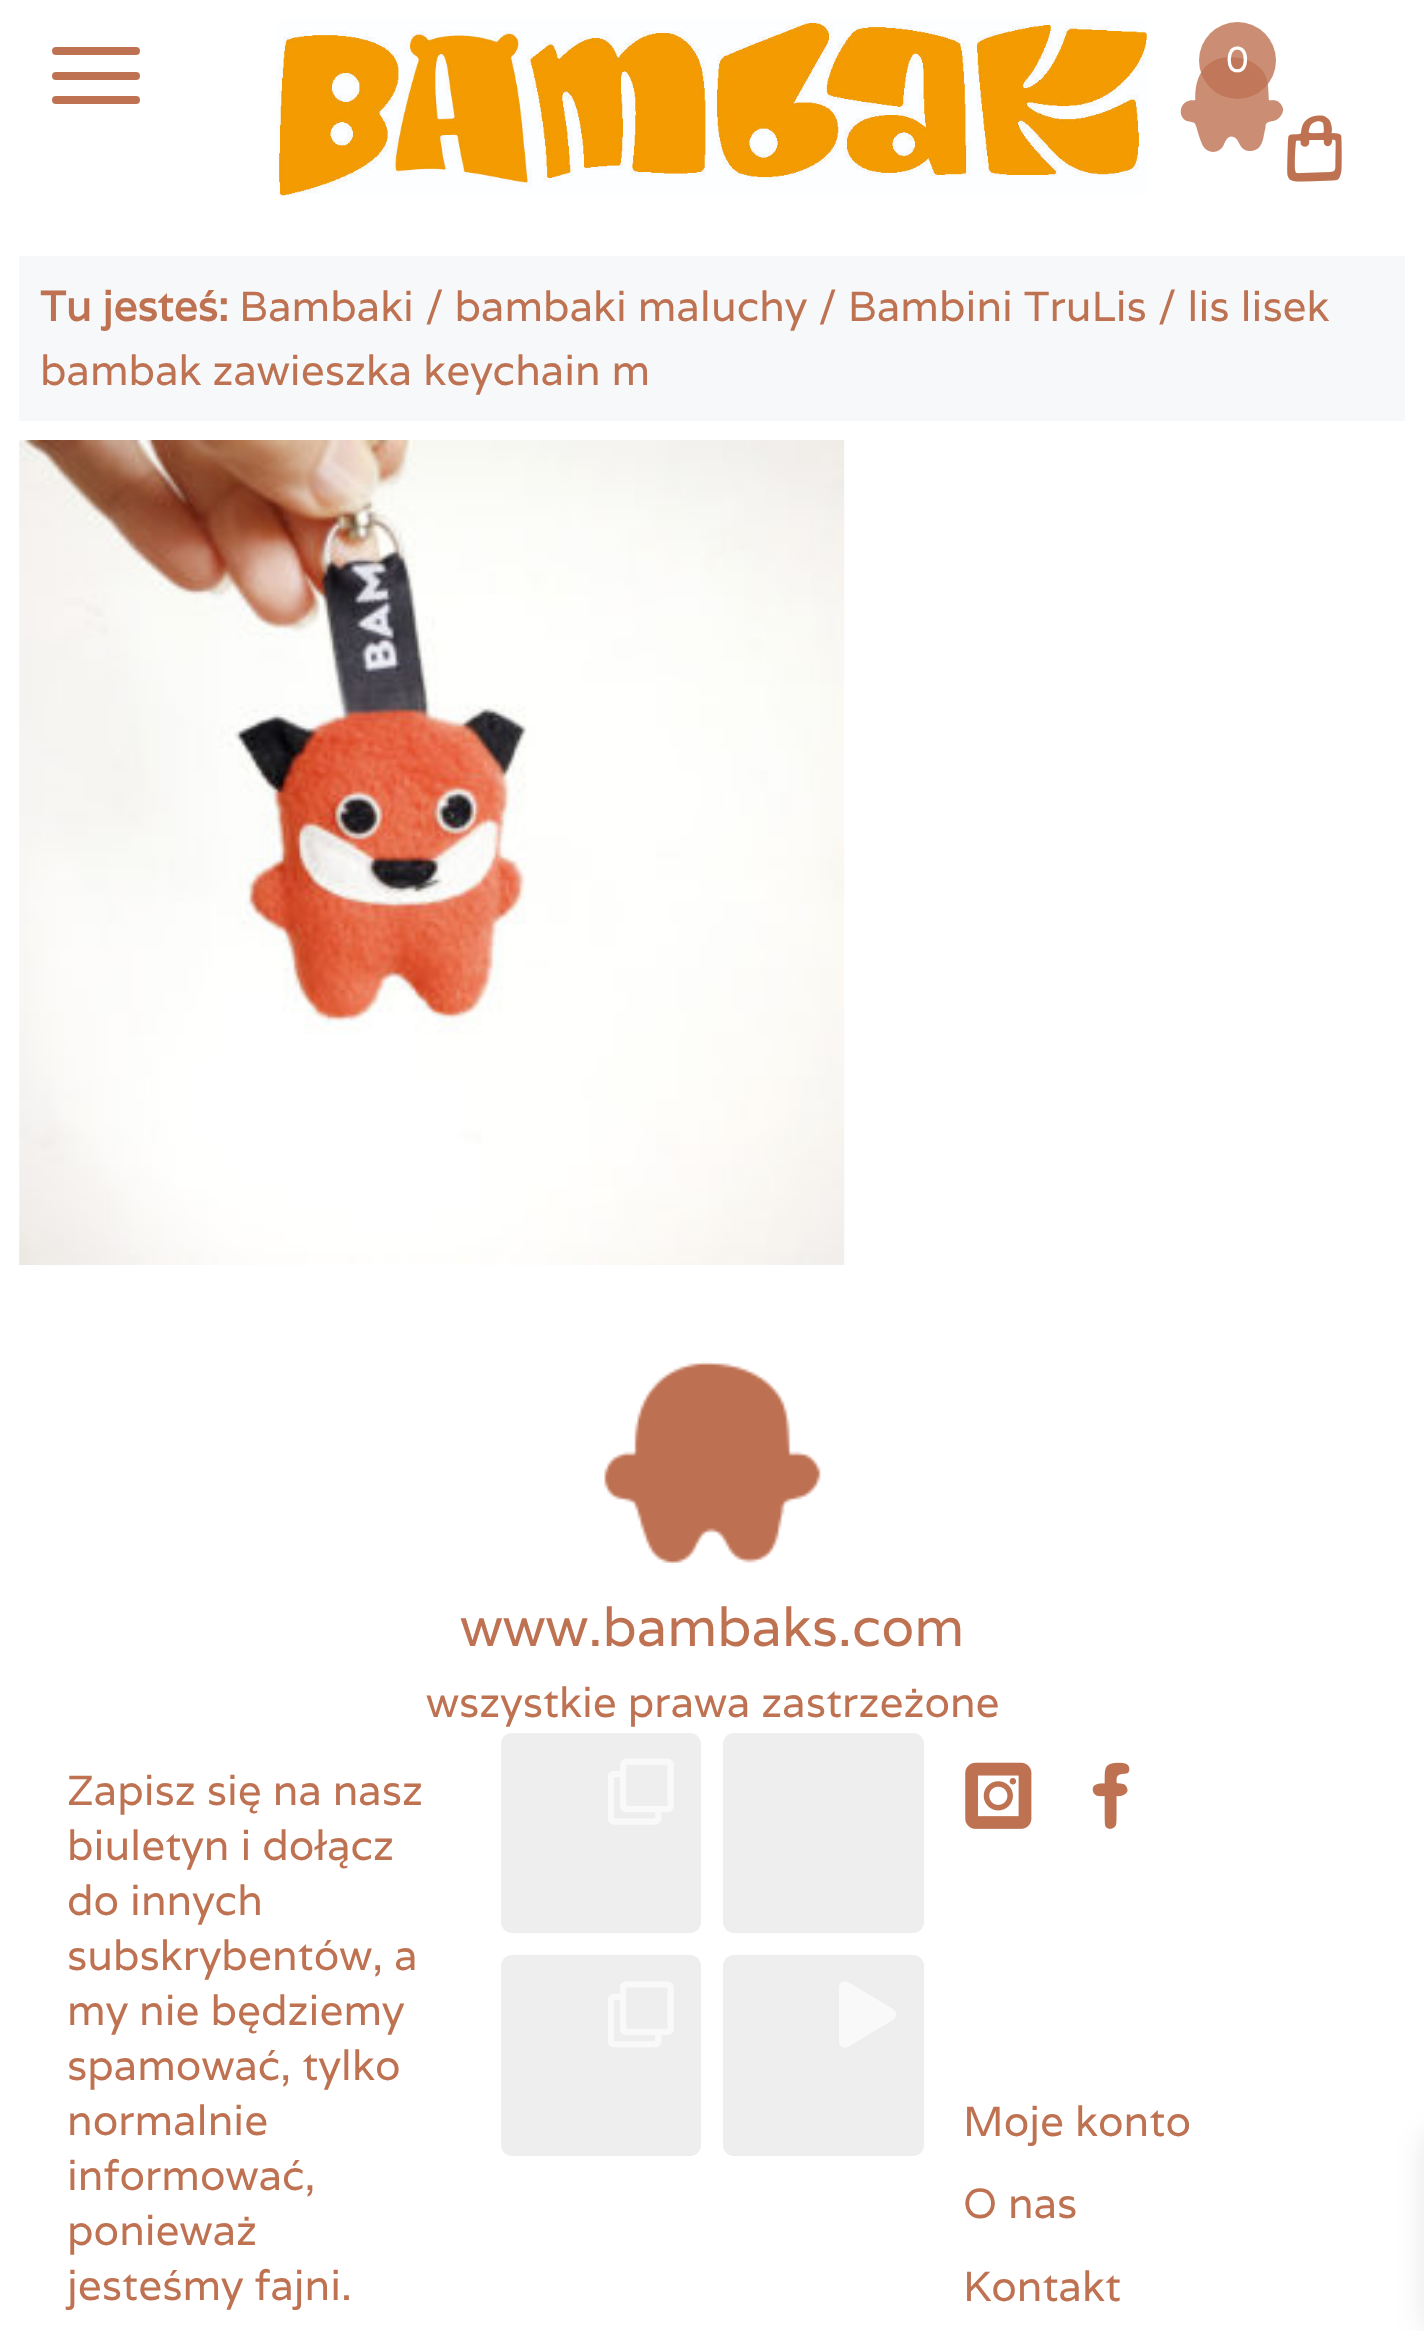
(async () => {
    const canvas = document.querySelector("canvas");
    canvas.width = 1424;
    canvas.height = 2331;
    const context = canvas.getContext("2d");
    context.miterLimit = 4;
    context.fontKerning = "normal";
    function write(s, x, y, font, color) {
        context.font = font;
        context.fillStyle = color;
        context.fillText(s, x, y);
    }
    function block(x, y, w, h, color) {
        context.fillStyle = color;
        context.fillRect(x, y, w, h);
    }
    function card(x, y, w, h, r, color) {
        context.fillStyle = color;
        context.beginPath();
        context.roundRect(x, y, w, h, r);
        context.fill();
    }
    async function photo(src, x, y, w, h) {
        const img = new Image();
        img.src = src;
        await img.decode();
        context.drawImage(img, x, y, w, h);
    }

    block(0, 0, 1424, 2331, "rgb(255, 255, 255)");
    card(52, 47, 88, 8, 4, "rgb(190, 114, 82)");
    card(52, 72, 88, 8, 4, "rgb(190, 114, 82)");
    card(52, 96, 88, 8, 4, "rgb(190, 114, 82)");
    await photo("media/1.png", 277, 19, 870, 177);
    await photo("media/3.png", 1180, 57, 104, 95);
    context.fillStyle = "rgba(190, 114, 82, 0.8)";
    context.beginPath();
    context.arc(1237.5, 60.5, 38.5, 0, Math.PI * 2);
    context.fill();
    write("0", 1226, 72, "36px Varela", "rgb(255, 255, 255)");
    await photo("media/2.png", 1287, 115, 55, 67);
    context.fillStyle = "rgba(0, 0, 0, 0.1)";
    context.filter = "blur(14px)";
    context.beginPath();
    context.rect(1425, 2134, 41, 195);
    context.fill();
    context.filter = "none";
    block(19, 256, 1386, 165, "rgb(247, 248, 249)");
    write("Tu jesteś:", 40, 321, "bold 42.1px Varela", "rgb(190, 114, 82)");
    write("Bambaki / bambaki maluchy / Bambini TruLis / lis lisek", 239, 321, "42.1px Varela", "rgb(190, 114, 82)");
    write("bambak zawieszka keychain m", 40, 385, "42.1px Varela", "rgb(190, 114, 82)");
    await photo("media/4.png", 19, 440, 826, 825);
    await photo("media/5.png", 604, 1361, 217, 204);
    write("www.bambaks.com", 460, 1646, "54.5px Varela", "rgb(190, 114, 82)");
    write("wszystkie prawa zastrzeżone", 426, 1717, "42.1px Varela", "rgb(190, 114, 82)");
    write("Zapisz się na nasz", 67, 1805, "42.1px Varela", "rgb(190, 114, 82)");
    write("biuletyn i dołącz", 67, 1860, "42.1px Varela", "rgb(190, 114, 82)");
    write("do innych", 67, 1915, "42.1px Varela", "rgb(190, 114, 82)");
    write("subskrybentów, a", 67, 1970, "42.1px Varela", "rgb(190, 114, 82)");
    write("my nie będziemy", 67, 2025, "42.1px Varela", "rgb(190, 114, 82)");
    write("spamować, tylko", 67, 2080, "42.1px Varela", "rgb(190, 114, 82)");
    write("normalnie", 67, 2135, "42.1px Varela", "rgb(190, 114, 82)");
    write("informować,", 67, 2190, "42.1px Varela", "rgb(190, 114, 82)");
    write("ponieważ", 67, 2245, "42.1px Varela", "rgb(190, 114, 82)");
    write("jesteśmy fajni.", 67, 2300, "42.1px Varela", "rgb(190, 114, 82)");
    card(501, 1733, 200, 200, 11, "rgb(238, 238, 238)");
    await photo("media/6.png", 608, 1758, 66, 67);
    card(723, 1733, 201, 200, 11, "rgb(238, 238, 238)");
    card(501, 1955, 200, 201, 11, "rgb(238, 238, 238)");
    await photo("media/7.png", 608, 1981, 66, 67);
    card(723, 1955, 201, 201, 11, "rgb(238, 238, 238)");
    context.fillStyle = "rgb(249, 249, 249)";
    context.beginPath();
    context.moveTo(893, 2009);
    context.lineTo(848, 1982);
    context.bezierCurveTo(846, 1981, 844, 1981, 842, 1982);
    context.bezierCurveTo(840, 1983, 839, 1985, 839, 1988);
    context.lineTo(839, 2041);
    context.bezierCurveTo(839, 2044, 840, 2045, 842, 2047);
    context.bezierCurveTo(844, 2048, 846, 2048, 848, 2047);
    context.lineTo(893, 2020);
    context.bezierCurveTo(895, 2019, 896, 2017, 896, 2014);
    context.bezierCurveTo(896, 2012, 895, 2010, 893, 2009);
    context.closePath();
    context.fill();
    await photo("media/8.png", 965, 1762, 67, 67);
    await photo("media/9.png", 1092, 1762, 38, 67);
    write("Moje konto", 963, 2136, "42.1px Varela", "rgb(190, 114, 82)");
    write("O nas", 963, 2218, "42.1px Varela", "rgb(190, 114, 82)");
    write("Kontakt", 963, 2301, "42.1px Varela", "rgb(190, 114, 82)");
})();
